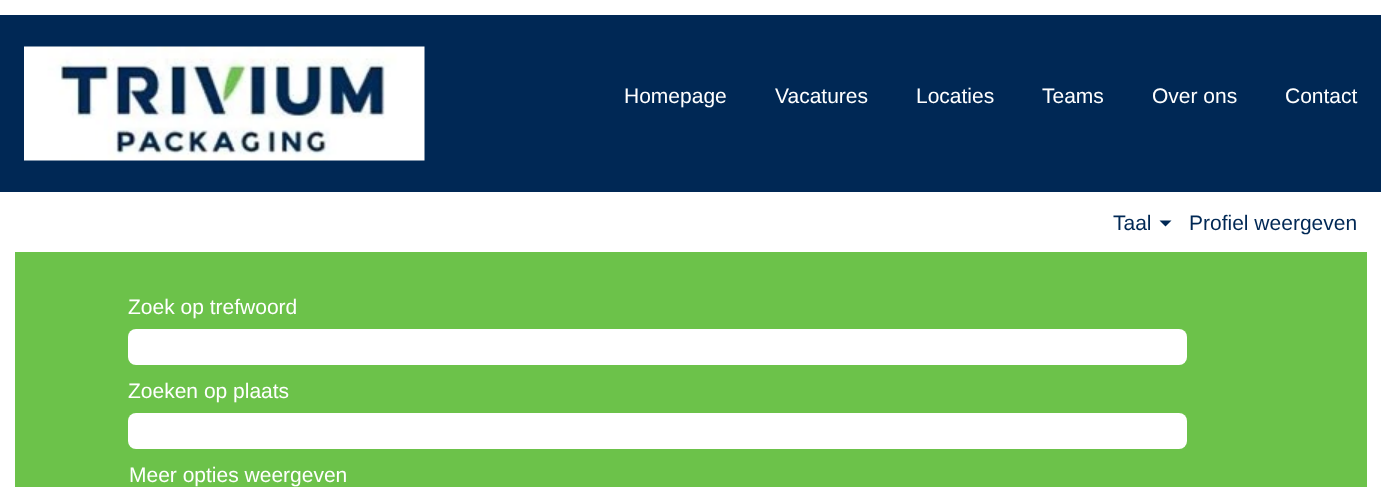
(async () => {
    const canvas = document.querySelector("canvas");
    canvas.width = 1381;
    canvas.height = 487;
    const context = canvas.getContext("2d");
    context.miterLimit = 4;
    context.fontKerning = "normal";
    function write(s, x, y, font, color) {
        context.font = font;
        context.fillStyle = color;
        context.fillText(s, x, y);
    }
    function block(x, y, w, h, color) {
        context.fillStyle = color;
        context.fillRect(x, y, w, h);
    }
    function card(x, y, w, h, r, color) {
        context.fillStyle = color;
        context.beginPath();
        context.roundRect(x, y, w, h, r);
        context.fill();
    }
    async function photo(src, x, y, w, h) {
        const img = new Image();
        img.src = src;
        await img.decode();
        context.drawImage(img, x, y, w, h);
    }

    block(0, 0, 1381, 487, "rgb(255, 255, 255)");
    block(0, 15, 1381, 177, "rgb(0, 40, 85)");
    await photo("media/1.png", 24, 46, 401, 115);
    write("Homepage", 624, 103, "21px Liberation Sans", "rgb(255, 255, 255)");
    write("Vacatures", 775, 103, "21px Liberation Sans", "rgb(255, 255, 255)");
    write("Locaties", 916, 103, "21px Liberation Sans", "rgb(255, 255, 255)");
    write("Teams", 1042, 103, "21px Liberation Sans", "rgb(255, 255, 255)");
    write("Over ons", 1152, 103, "21px Liberation Sans", "rgb(255, 255, 255)");
    write("Contact", 1285, 103, "21px Liberation Sans", "rgb(255, 255, 255)");
    write("Taal", 1113, 230, "21px Liberation Sans", "rgb(0, 40, 85)");
    context.beginPath();
    context.moveTo(1159.5, 220.5);
    context.lineTo(1171.5, 220.5);
    context.lineTo(1165.5, 226.5);
    context.closePath();
    context.fill();
    write("Profiel weergeven", 1189, 230, "21px Liberation Sans", "rgb(0, 40, 85)");
    block(15, 252, 1352, 235, "rgb(108, 194, 74)");
    write("Zoek op trefwoord", 128, 314, "21px Liberation Sans", "rgb(255, 255, 255)");
    card(128, 329, 1059, 36, 8, "rgb(255, 255, 255)");
    write("Zoeken op plaats", 128, 398, "21px Liberation Sans", "rgb(255, 255, 255)");
    card(128, 413, 1059, 36, 8, "rgb(255, 255, 255)");
    write("Meer opties weergeven", 129, 482, "21px Liberation Sans", "rgb(255, 255, 255)");
})();
